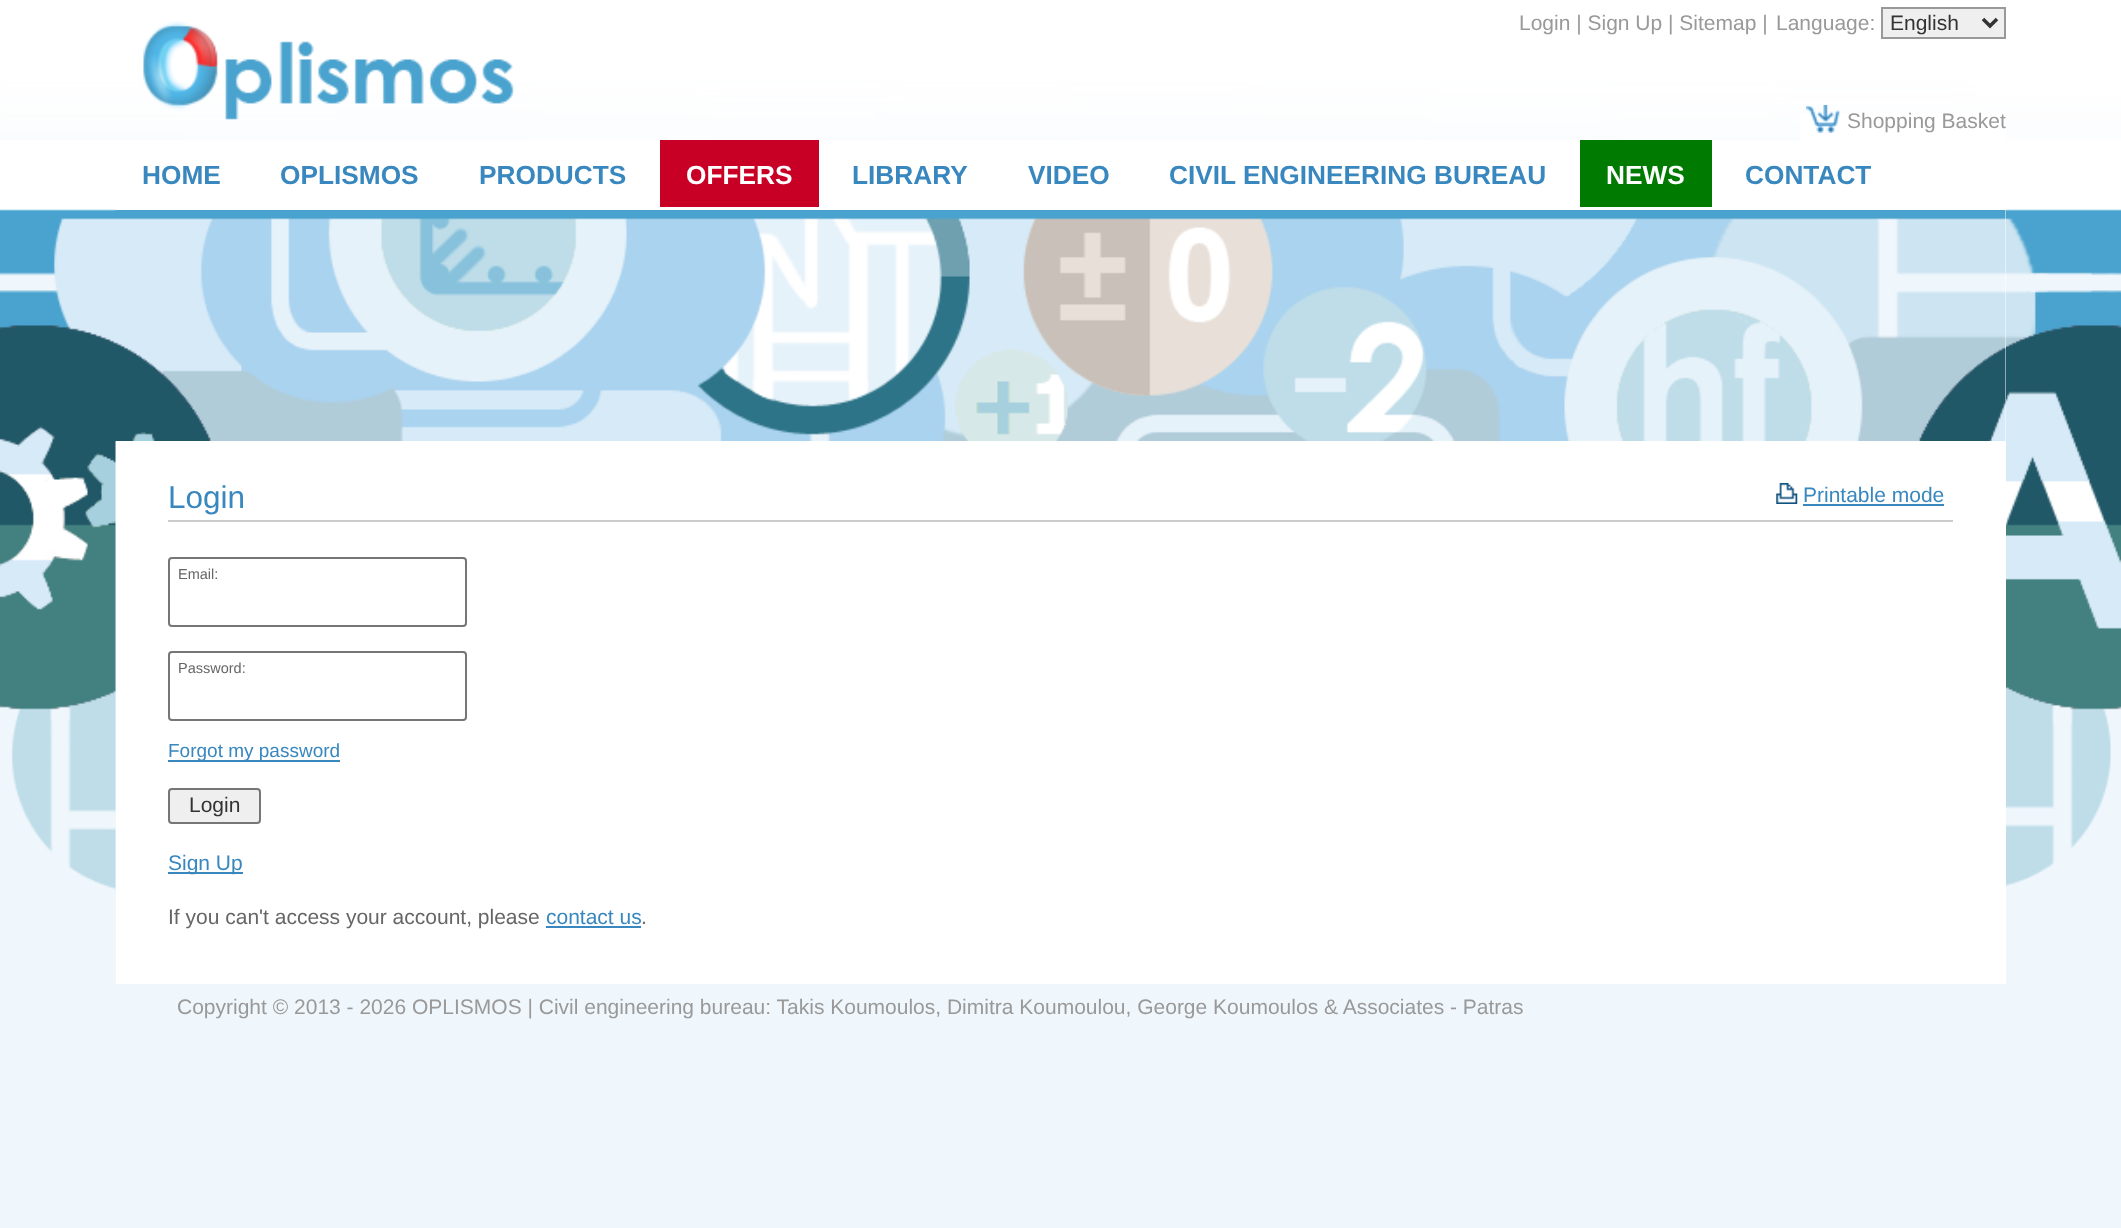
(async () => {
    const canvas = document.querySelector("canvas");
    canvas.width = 2121;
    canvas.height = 1228;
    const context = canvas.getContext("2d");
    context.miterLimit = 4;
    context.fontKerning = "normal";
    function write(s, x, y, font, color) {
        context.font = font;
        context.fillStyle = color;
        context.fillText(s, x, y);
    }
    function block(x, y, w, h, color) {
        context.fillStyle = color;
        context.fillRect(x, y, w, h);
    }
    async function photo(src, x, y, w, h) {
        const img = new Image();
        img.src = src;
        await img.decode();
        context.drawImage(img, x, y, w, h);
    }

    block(0, 0, 2121, 1228, "rgb(240, 247, 252)");
    await photo("media/1.png", 0, 0, 2121, 890);
    block(116, 113, 1890, 27, "rgb(255, 255, 255)");
    await photo("media/2.png", 116, 21, 1684, 119);
    write("Login | Sign Up | Sitemap |", 1519, 30, "21px Liberation Sans", "rgb(153, 153, 153)");
    write("Language:", 1776, 30, "21px Liberation Sans", "rgb(153, 153, 153)");
    context.fillStyle = "rgb(239, 239, 239)";
    context.beginPath();
    context.rect(1882, 8, 123, 30);
    context.fill();
    context.strokeStyle = "rgb(153, 153, 153)";
    context.lineWidth = 2;
    context.stroke();
    context.beginPath();
    context.moveTo(1983, 19);
    context.lineTo(1990, 26);
    context.lineTo(1997, 19);
    context.strokeStyle = "rgb(51, 51, 51)";
    context.lineWidth = 3.5;
    context.stroke();
    write("English", 1890, 30, "21px Liberation Sans", "rgb(51, 51, 51)");
    await photo("media/3.png", 1806, 105, 34, 28);
    write("Shopping Basket", 1847, 128, "21px Liberation Sans", "rgb(153, 153, 153)");
    block(116, 209, 1890, 1, "rgb(255, 255, 255)");
    write("HOME", 142, 184, "bold 26.25px Liberation Sans", "rgb(56, 135, 190)");
    write("OPLISMOS", 280, 184, "bold 26.25px Liberation Sans", "rgb(56, 135, 190)");
    write("PRODUCTS", 479, 184, "bold 26.25px Liberation Sans", "rgb(56, 135, 190)");
    block(660, 140, 159, 67, "rgb(201, 0, 37)");
    write("OFFERS", 686, 184, "bold 26.25px Liberation Sans", "rgb(255, 255, 255)");
    write("LIBRARY", 852, 184, "bold 26.25px Liberation Sans", "rgb(56, 135, 190)");
    write("VIDEO", 1028, 184, "bold 26.25px Liberation Sans", "rgb(56, 135, 190)");
    write("CIVIL ENGINEERING BUREAU", 1169, 184, "bold 26.25px Liberation Sans", "rgb(56, 135, 190)");
    block(1580, 140, 132, 67, "rgb(0, 122, 0)");
    write("NEWS", 1606, 184, "bold 26.25px Liberation Sans", "rgb(255, 255, 255)");
    write("CONTACT", 1745, 184, "bold 26.25px Liberation Sans", "rgb(56, 135, 190)");
    block(2005, 210, 1, 231, "rgb(255, 255, 255)");
    await photo("media/4.png", 115, 210, 1891, 231);
    block(116, 441, 1890, 543, "rgb(255, 255, 255)");
    block(168, 520, 1785, 2, "rgb(204, 204, 204)");
    write("Login", 168, 508, "31.5px Liberation Sans", "rgb(56, 135, 190)");
    context.beginPath();
    context.roundRect(169, 558, 297, 68, 3);
    context.strokeStyle = "rgb(118, 118, 118)";
    context.lineWidth = 2;
    context.stroke();
    write("Email:", 178, 579, "14.5px Liberation Sans", "rgb(102, 102, 102)");
    context.beginPath();
    context.roundRect(169, 652, 297, 68, 3);
    context.stroke();
    write("Password:", 178, 673, "14.5px Liberation Sans", "rgb(102, 102, 102)");
    block(168, 760, 172, 2, "rgb(56, 135, 190)");
    write("Forgot my password", 168, 757, "19px Liberation Sans", "rgb(56, 135, 190)");
    context.fillStyle = "rgb(239, 239, 239)";
    context.beginPath();
    context.roundRect(169, 789, 91, 34, 3);
    context.fill();
    context.stroke();
    write("Login", 189, 812, "21px Liberation Sans", "rgb(51, 51, 51)");
    await photo("media/5.png", 1776, 483, 22, 21);
    write("Printable mode", 1803, 502, "21px Liberation Sans", "rgb(56, 135, 190)");
    block(1803, 504, 141, 2, "rgb(56, 135, 190)");
    block(168, 872, 75, 2, "rgb(56, 135, 190)");
    write("Sign Up", 168, 870, "21px Liberation Sans", "rgb(56, 135, 190)");
    write("If you can't access your account, please", 168, 924, "21px Liberation Sans", "rgb(102, 102, 102)");
    write("contact us", 546, 924, "21px Liberation Sans", "rgb(56, 135, 190)");
    block(546, 926, 95, 2, "rgb(56, 135, 190)");
    write(".", 641, 924, "21px Liberation Sans", "rgb(102, 102, 102)");
    write("Copyright © 2013 - 2026 OPLISMOS | Civil engineering bureau: Takis Koumoulos, Dimitra Koumoulou, George Koumoulos & Associates - Patras", 177, 1014, "21px Liberation Sans", "rgb(153, 153, 153)");
})();
